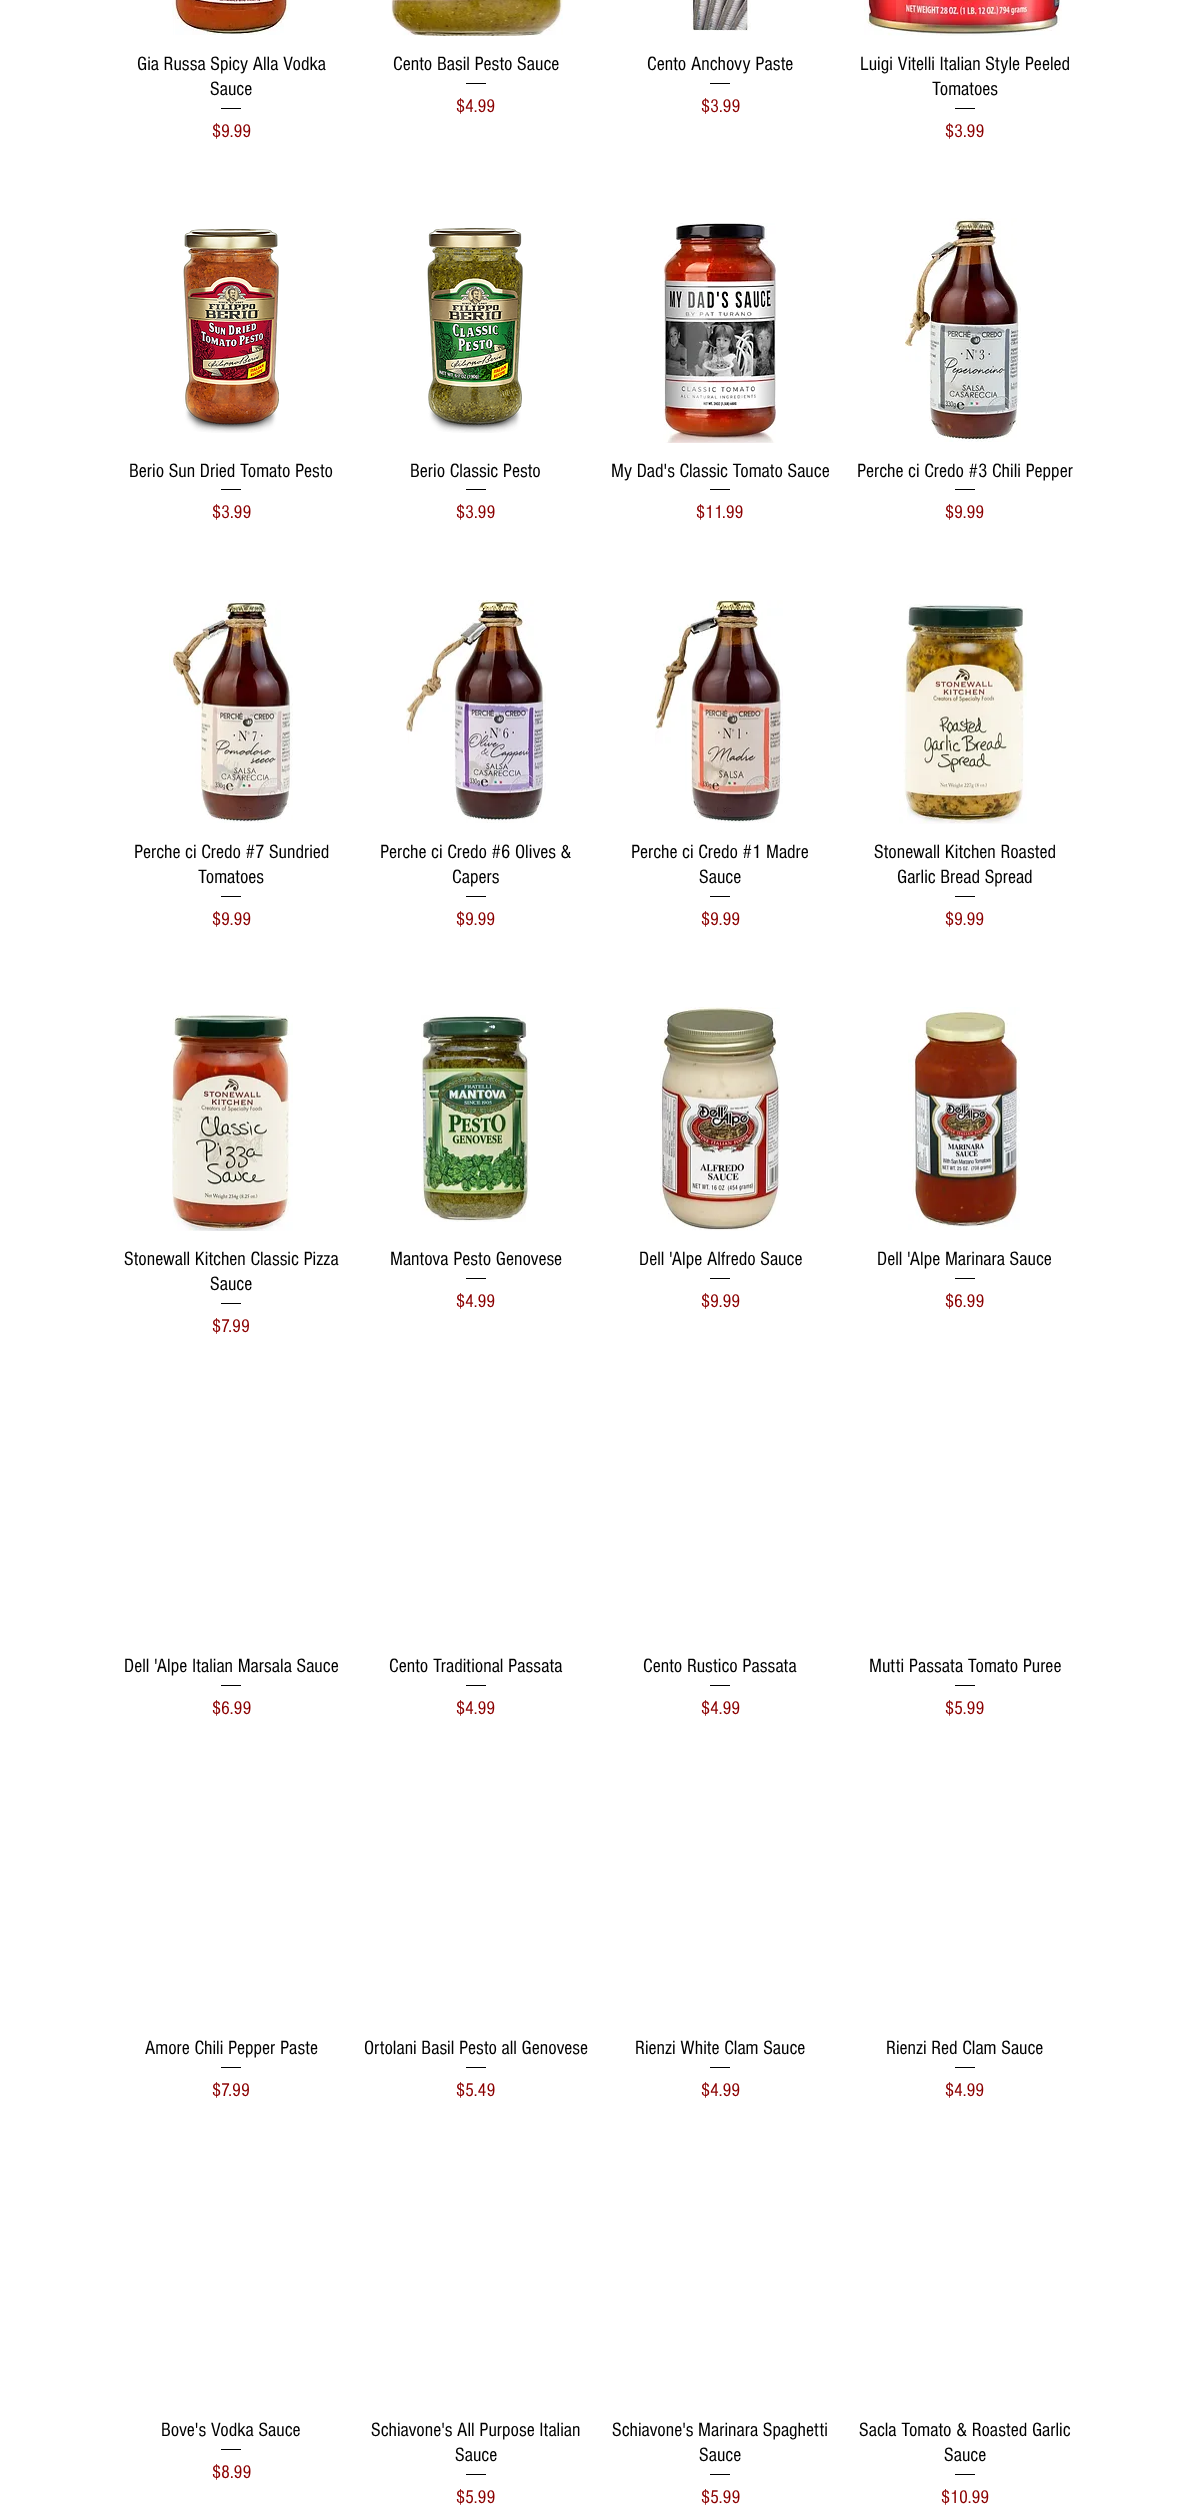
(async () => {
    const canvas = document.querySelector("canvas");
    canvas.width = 1196;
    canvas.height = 2514;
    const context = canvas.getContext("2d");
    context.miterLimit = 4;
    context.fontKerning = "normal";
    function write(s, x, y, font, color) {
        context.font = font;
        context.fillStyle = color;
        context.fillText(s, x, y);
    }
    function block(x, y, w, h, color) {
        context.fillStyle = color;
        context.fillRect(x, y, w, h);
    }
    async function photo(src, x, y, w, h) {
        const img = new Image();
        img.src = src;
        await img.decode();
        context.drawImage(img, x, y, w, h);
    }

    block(0, 0, 1196, 2514, "rgb(255, 255, 255)");
    await photo("media/1.png", 172, 0, 118, 35);
    write("Gia Russa Spicy Alla Vodka", 137, 70, "20px 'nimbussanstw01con'", "rgb(0, 0, 0)");
    write("Sauce", 210, 95, "20px 'nimbussanstw01con'", "rgb(0, 0, 0)");
    block(221, 108, 20, 1, "rgb(0, 0, 0)");
    write("$9.99", 212, 137, "19px 'nimbussanstw01con'", "rgb(139, 0, 0)");
    await photo("media/2.png", 391, 0, 172, 36);
    write("Cento Basil Pesto Sauce", 393, 70, "20px 'nimbussanstw01con'", "rgb(0, 0, 0)");
    block(466, 83, 20, 1, "rgb(0, 0, 0)");
    write("$4.99", 456, 112, "19px 'nimbussanstw01con'", "rgb(139, 0, 0)");
    await photo("media/3.png", 691, 0, 60, 31);
    write("Cento Anchovy Paste", 647, 70, "20px 'nimbussanstw01con'", "rgb(0, 0, 0)");
    block(710, 83, 20, 1, "rgb(0, 0, 0)");
    write("$3.99", 701, 112, "19px 'nimbussanstw01con'", "rgb(139, 0, 0)");
    await photo("media/4.png", 864, 0, 198, 36);
    write("Luigi Vitelli Italian Style Peeled", 860, 70, "20px 'nimbussanstw01con'", "rgb(0, 0, 0)");
    write("Tomatoes", 932, 95, "20px 'nimbussanstw01con'", "rgb(0, 0, 0)");
    block(955, 108, 20, 1, "rgb(0, 0, 0)");
    write("$3.99", 945, 137, "19px 'nimbussanstw01con'", "rgb(139, 0, 0)");
    await photo("media/5.png", 183, 229, 96, 204);
    write("Berio Sun Dried Tomato Pesto", 129, 477, "20px 'nimbussanstw01con'", "rgb(0, 0, 0)");
    block(221, 489, 20, 1, "rgb(0, 0, 0)");
    write("$3.99", 212, 518, "19px 'nimbussanstw01con'", "rgb(139, 0, 0)");
    await photo("media/6.png", 427, 227, 96, 206);
    write("Berio Classic Pesto", 410, 477, "20px 'nimbussanstw01con'", "rgb(0, 0, 0)");
    block(466, 489, 20, 1, "rgb(0, 0, 0)");
    write("$3.99", 456, 518, "19px 'nimbussanstw01con'", "rgb(139, 0, 0)");
    await photo("media/7.png", 663, 223, 113, 220);
    write("My Dad's Classic Tomato Sauce", 611, 477, "20px 'nimbussanstw01con'", "rgb(0, 0, 0)");
    block(710, 489, 20, 1, "rgb(0, 0, 0)");
    write("$11.99", 696, 518, "19px 'nimbussanstw01con'", "rgb(139, 0, 0)");
    await photo("media/8.png", 905, 218, 116, 224);
    write("Perche ci Credo #3 Chili Pepper", 857, 477, "20px 'nimbussanstw01con'", "rgb(0, 0, 0)");
    block(955, 489, 20, 1, "rgb(0, 0, 0)");
    write("$9.99", 945, 518, "19px 'nimbussanstw01con'", "rgb(139, 0, 0)");
    await photo("media/9.png", 169, 600, 124, 223);
    write("Perche ci Credo #7 Sundried", 134, 858, "20px 'nimbussanstw01con'", "rgb(0, 0, 0)");
    write("Tomatoes", 198, 883, "20px 'nimbussanstw01con'", "rgb(0, 0, 0)");
    block(221, 896, 20, 1, "rgb(0, 0, 0)");
    write("$9.99", 212, 925, "19px 'nimbussanstw01con'", "rgb(139, 0, 0)");
    await photo("media/10.png", 406, 600, 140, 223);
    write("Perche ci Credo #6 Olives &", 380, 858, "20px 'nimbussanstw01con'", "rgb(0, 0, 0)");
    write("Capers", 452, 883, "20px 'nimbussanstw01con'", "rgb(0, 0, 0)");
    block(466, 896, 20, 1, "rgb(0, 0, 0)");
    write("$9.99", 456, 925, "19px 'nimbussanstw01con'", "rgb(139, 0, 0)");
    await photo("media/11.png", 655, 600, 128, 223);
    write("Perche ci Credo #1 Madre", 631, 858, "20px 'nimbussanstw01con'", "rgb(0, 0, 0)");
    write("Sauce", 699, 883, "20px 'nimbussanstw01con'", "rgb(0, 0, 0)");
    block(710, 896, 20, 1, "rgb(0, 0, 0)");
    write("$9.99", 701, 925, "19px 'nimbussanstw01con'", "rgb(139, 0, 0)");
    await photo("media/12.png", 899, 604, 128, 220);
    write("Stonewall Kitchen Roasted", 874, 858, "20px 'nimbussanstw01con'", "rgb(0, 0, 0)");
    write("Garlic Bread Spread", 897, 883, "20px 'nimbussanstw01con'", "rgb(0, 0, 0)");
    block(955, 896, 20, 1, "rgb(0, 0, 0)");
    write("$9.99", 945, 925, "19px 'nimbussanstw01con'", "rgb(139, 0, 0)");
    await photo("media/13.png", 172, 1015, 121, 216);
    write("Stonewall Kitchen Classic Pizza", 124, 1265, "20px 'nimbussanstw01con'", "rgb(0, 0, 0)");
    write("Sauce", 210, 1290, "20px 'nimbussanstw01con'", "rgb(0, 0, 0)");
    block(221, 1303, 20, 1, "rgb(0, 0, 0)");
    write("$7.99", 212, 1332, "19px 'nimbussanstw01con'", "rgb(139, 0, 0)");
    await photo("media/14.png", 421, 1015, 109, 207);
    write("Mantova Pesto Genovese", 390, 1265, "20px 'nimbussanstw01con'", "rgb(0, 0, 0)");
    block(466, 1278, 20, 1, "rgb(0, 0, 0)");
    write("$4.99", 456, 1307, "19px 'nimbussanstw01con'", "rgb(139, 0, 0)");
    await photo("media/15.png", 660, 1007, 120, 224);
    write("Dell 'Alpe Alfredo Sauce", 639, 1265, "20px 'nimbussanstw01con'", "rgb(0, 0, 0)");
    block(710, 1278, 20, 1, "rgb(0, 0, 0)");
    write("$9.99", 701, 1307, "19px 'nimbussanstw01con'", "rgb(139, 0, 0)");
    await photo("media/16.png", 908, 1007, 112, 223);
    write("Dell 'Alpe Marinara Sauce", 877, 1265, "20px 'nimbussanstw01con'", "rgb(0, 0, 0)");
    block(955, 1278, 20, 1, "rgb(0, 0, 0)");
    write("$6.99", 945, 1307, "19px 'nimbussanstw01con'", "rgb(139, 0, 0)");
    write("Dell 'Alpe Italian Marsala Sauce", 124, 1672, "20px 'nimbussanstw01con'", "rgb(0, 0, 0)");
    block(221, 1685, 20, 1, "rgb(0, 0, 0)");
    write("$6.99", 212, 1714, "19px 'nimbussanstw01con'", "rgb(139, 0, 0)");
    write("Cento Traditional Passata", 389, 1672, "20px 'nimbussanstw01con'", "rgb(0, 0, 0)");
    block(466, 1685, 20, 1, "rgb(0, 0, 0)");
    write("$4.99", 456, 1714, "19px 'nimbussanstw01con'", "rgb(139, 0, 0)");
    write("Cento Rustico Passata", 643, 1672, "20px 'nimbussanstw01con'", "rgb(0, 0, 0)");
    block(710, 1685, 20, 1, "rgb(0, 0, 0)");
    write("$4.99", 701, 1714, "19px 'nimbussanstw01con'", "rgb(139, 0, 0)");
    write("Mutti Passata Tomato Puree", 869, 1672, "20px 'nimbussanstw01con'", "rgb(0, 0, 0)");
    block(955, 1685, 20, 1, "rgb(0, 0, 0)");
    write("$5.99", 945, 1714, "19px 'nimbussanstw01con'", "rgb(139, 0, 0)");
    write("Amore Chili Pepper Paste", 145, 2054, "20px 'nimbussanstw01con'", "rgb(0, 0, 0)");
    block(221, 2067, 20, 1, "rgb(0, 0, 0)");
    write("$7.99", 212, 2096, "19px 'nimbussanstw01con'", "rgb(139, 0, 0)");
    write("Ortolani Basil Pesto all Genovese", 364, 2054, "20px 'nimbussanstw01con'", "rgb(0, 0, 0)");
    block(466, 2067, 20, 1, "rgb(0, 0, 0)");
    write("$5.49", 456, 2096, "19px 'nimbussanstw01con'", "rgb(139, 0, 0)");
    write("Rienzi White Clam Sauce", 635, 2054, "20px 'nimbussanstw01con'", "rgb(0, 0, 0)");
    block(710, 2067, 20, 1, "rgb(0, 0, 0)");
    write("$4.99", 701, 2096, "19px 'nimbussanstw01con'", "rgb(139, 0, 0)");
    write("Rienzi Red Clam Sauce", 886, 2054, "20px 'nimbussanstw01con'", "rgb(0, 0, 0)");
    block(955, 2067, 20, 1, "rgb(0, 0, 0)");
    write("$4.99", 945, 2096, "19px 'nimbussanstw01con'", "rgb(139, 0, 0)");
    write("Bove's Vodka Sauce", 161, 2436, "20px 'nimbussanstw01con'", "rgb(0, 0, 0)");
    block(221, 2449, 20, 1, "rgb(0, 0, 0)");
    write("$8.99", 212, 2478, "19px 'nimbussanstw01con'", "rgb(139, 0, 0)");
    write("Schiavone's All Purpose Italian", 371, 2436, "20px 'nimbussanstw01con'", "rgb(0, 0, 0)");
    write("Sauce", 455, 2461, "20px 'nimbussanstw01con'", "rgb(0, 0, 0)");
    block(466, 2474, 20, 1, "rgb(0, 0, 0)");
    write("$5.99", 456, 2503, "19px 'nimbussanstw01con'", "rgb(139, 0, 0)");
    write("Schiavone's Marinara Spaghetti", 612, 2436, "20px 'nimbussanstw01con'", "rgb(0, 0, 0)");
    write("Sauce", 699, 2461, "20px 'nimbussanstw01con'", "rgb(0, 0, 0)");
    block(710, 2474, 20, 1, "rgb(0, 0, 0)");
    write("$5.99", 701, 2503, "19px 'nimbussanstw01con'", "rgb(139, 0, 0)");
    write("Sacla Tomato & Roasted Garlic", 859, 2436, "20px 'nimbussanstw01con'", "rgb(0, 0, 0)");
    write("Sauce", 944, 2461, "20px 'nimbussanstw01con'", "rgb(0, 0, 0)");
    block(955, 2474, 20, 1, "rgb(0, 0, 0)");
    write("$10.99", 941, 2503, "19px 'nimbussanstw01con'", "rgb(139, 0, 0)");
})();
